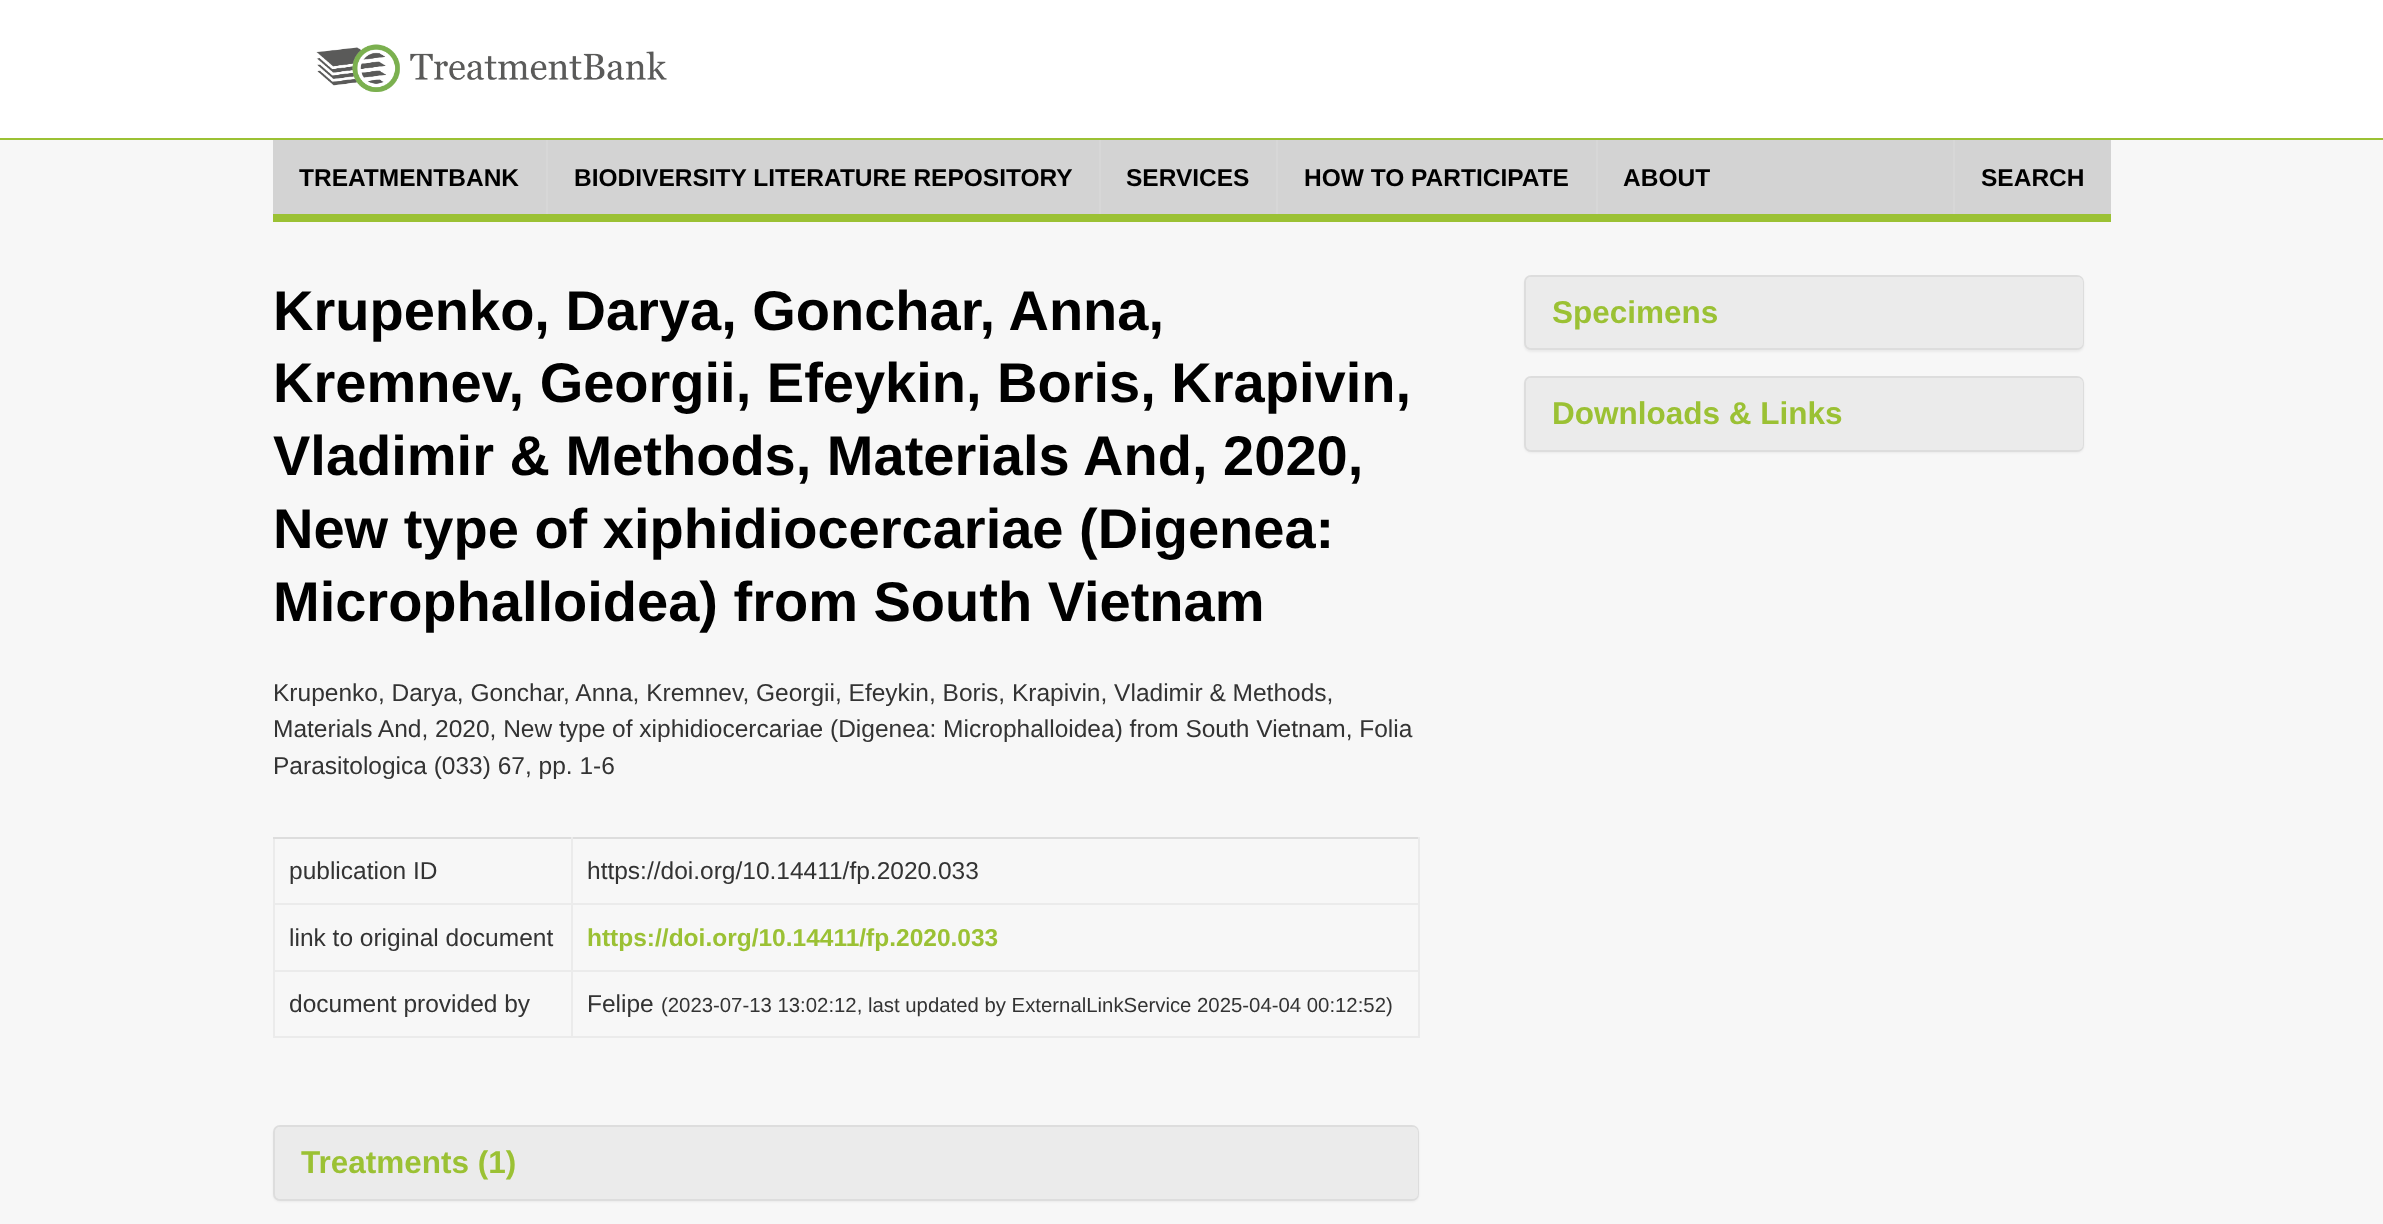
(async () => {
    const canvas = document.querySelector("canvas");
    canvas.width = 2383;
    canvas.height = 1224;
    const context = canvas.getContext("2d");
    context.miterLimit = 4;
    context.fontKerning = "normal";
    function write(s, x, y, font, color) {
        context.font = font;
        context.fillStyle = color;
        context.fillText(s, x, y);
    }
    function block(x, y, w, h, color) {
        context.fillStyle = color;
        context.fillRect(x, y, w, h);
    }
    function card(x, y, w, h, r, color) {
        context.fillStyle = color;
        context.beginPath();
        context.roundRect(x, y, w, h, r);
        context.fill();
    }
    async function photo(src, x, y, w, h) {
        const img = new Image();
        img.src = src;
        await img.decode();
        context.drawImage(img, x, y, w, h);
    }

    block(0, 0, 2383, 1224, "rgb(247, 247, 247)");
    block(0, 0, 2383, 138, "rgb(255, 255, 255)");
    block(0, 138, 2383, 2, "rgb(155, 193, 52)");
    await photo("media/1.png", 316, 44, 351, 48);
    block(273, 214, 1838, 8, "rgb(155, 193, 52)");
    block(273, 140, 1838, 74, "rgb(211, 211, 211)");
    write("TREATMENTBANK", 299, 186, "bold 24.5px Liberation Sans", "rgb(0, 0, 0)");
    block(546, 140, 2, 74, "rgb(215, 215, 215)");
    write("BIODIVERSITY LITERATURE REPOSITORY", 574, 186, "bold 24.5px Liberation Sans", "rgb(0, 0, 0)");
    block(1099, 140, 2, 74, "rgb(215, 215, 215)");
    write("SERVICES", 1126, 186, "bold 24.5px Liberation Sans", "rgb(0, 0, 0)");
    block(1276, 140, 2, 74, "rgb(215, 215, 215)");
    write("HOW TO PARTICIPATE", 1304, 186, "bold 24.5px Liberation Sans", "rgb(0, 0, 0)");
    block(1596, 140, 2, 74, "rgb(215, 215, 215)");
    write("ABOUT", 1623, 186, "bold 24.5px Liberation Sans", "rgb(0, 0, 0)");
    block(1953, 140, 2, 74, "rgb(215, 215, 215)");
    write("SEARCH", 1981, 186, "bold 24.5px Liberation Sans", "rgb(0, 0, 0)");
    write("Krupenko, Darya, Gonchar, Anna,", 273, 330, "bold 56px Liberation Sans", "rgb(0, 0, 0)");
    write("Kremnev, Georgii, Efeykin, Boris, Krapivin,", 273, 402, "bold 56px Liberation Sans", "rgb(0, 0, 0)");
    write("Vladimir & Methods, Materials And, 2020,", 273, 475, "bold 56px Liberation Sans", "rgb(0, 0, 0)");
    write("New type of xiphidiocercariae (Digenea:", 273, 548, "bold 56px Liberation Sans", "rgb(0, 0, 0)");
    write("Microphalloidea) from South Vietnam", 273, 621, "bold 56px Liberation Sans", "rgb(0, 0, 0)");
    write("Krupenko, Darya, Gonchar, Anna, Kremnev, Georgii, Efeykin, Boris, Krapivin, Vladimir & Methods,", 273, 701, "24.5px Liberation Sans", "rgb(51, 51, 51)");
    write("Materials And, 2020, New type of xiphidiocercariae (Digenea: Microphalloidea) from South Vietnam, Folia", 273, 737, "24.5px Liberation Sans", "rgb(51, 51, 51)");
    write("Parasitologica (033) 67, pp. 1-6", 273, 774, "24.5px Liberation Sans", "rgb(51, 51, 51)");
    block(273, 837, 2, 201, "rgb(235, 235, 235)");
    block(273, 837, 1146, 2, "rgb(221, 221, 221)");
    block(1418, 903, 2, 135, "rgb(235, 235, 235)");
    block(1418, 837, 2, 68, "rgb(235, 235, 235)");
    block(571, 1036, 848, 2, "rgb(235, 235, 235)");
    block(571, 970, 2, 68, "rgb(235, 235, 235)");
    block(571, 970, 848, 2, "rgb(235, 235, 235)");
    block(571, 903, 2, 68, "rgb(235, 235, 235)");
    block(571, 903, 848, 2, "rgb(235, 235, 235)");
    block(571, 837, 2, 68, "rgb(235, 235, 235)");
    block(273, 903, 299, 2, "rgb(235, 235, 235)");
    write("publication ID", 289, 879, "24.5px Liberation Sans", "rgb(51, 51, 51)");
    write("https://doi.org/10.14411/fp.2020.033", 587, 879, "24.5px Liberation Sans", "rgb(51, 51, 51)");
    block(273, 970, 299, 2, "rgb(235, 235, 235)");
    write("link to original document", 289, 946, "24.5px Liberation Sans", "rgb(51, 51, 51)");
    write("https://doi.org/10.14411/fp.2020.033", 587, 946, "bold 24.5px Liberation Sans", "rgb(155, 193, 52)");
    block(273, 1036, 299, 2, "rgb(235, 235, 235)");
    write("document provided by", 289, 1012, "24.5px Liberation Sans", "rgb(51, 51, 51)");
    write("Felipe", 587, 1012, "24.5px Liberation Sans", "rgb(51, 51, 51)");
    write("(2023-07-13 13:02:12, last updated by ExternalLinkService 2025-04-04 00:12:52)", 661, 1012, "20.35px Liberation Sans", "rgb(51, 51, 51)");
    context.fillStyle = "rgba(0, 0, 0, 0.05)";
    context.filter = "blur(1px)";
    context.beginPath();
    context.roundRect(273, 1127, 1146, 75, 7);
    context.fill();
    context.filter = "none";
    context.beginPath();
    context.roundRect(274, 1126, 1144, 74, 6);
    context.strokeStyle = "rgb(221, 221, 221)";
    context.lineWidth = 2;
    context.stroke();
    card(275, 1127, 1143, 72, 5, "rgb(235, 235, 235)");
    write("Treatments (1)", 301, 1173, "bold 31.5px Liberation Sans", "rgb(155, 193, 52)");
    context.fillStyle = "rgba(0, 0, 0, 0.05)";
    context.filter = "blur(1px)";
    context.beginPath();
    context.roundRect(1524, 277, 560, 75, 7);
    context.fill();
    context.filter = "none";
    context.beginPath();
    context.roundRect(1525, 276, 558, 73, 6);
    context.stroke();
    card(1526, 277, 557, 71, 5, "rgb(235, 235, 235)");
    write("Specimens", 1552, 323, "bold 31.5px Liberation Sans", "rgb(155, 193, 52)");
    context.fillStyle = "rgba(0, 0, 0, 0.05)";
    context.filter = "blur(1px)";
    context.beginPath();
    context.roundRect(1524, 378, 560, 75, 7);
    context.fill();
    context.filter = "none";
    context.beginPath();
    context.roundRect(1525, 377, 558, 74, 6);
    context.stroke();
    card(1526, 378, 557, 72, 5, "rgb(235, 235, 235)");
    write("Downloads & Links", 1552, 424, "bold 31.5px Liberation Sans", "rgb(155, 193, 52)");
})();
